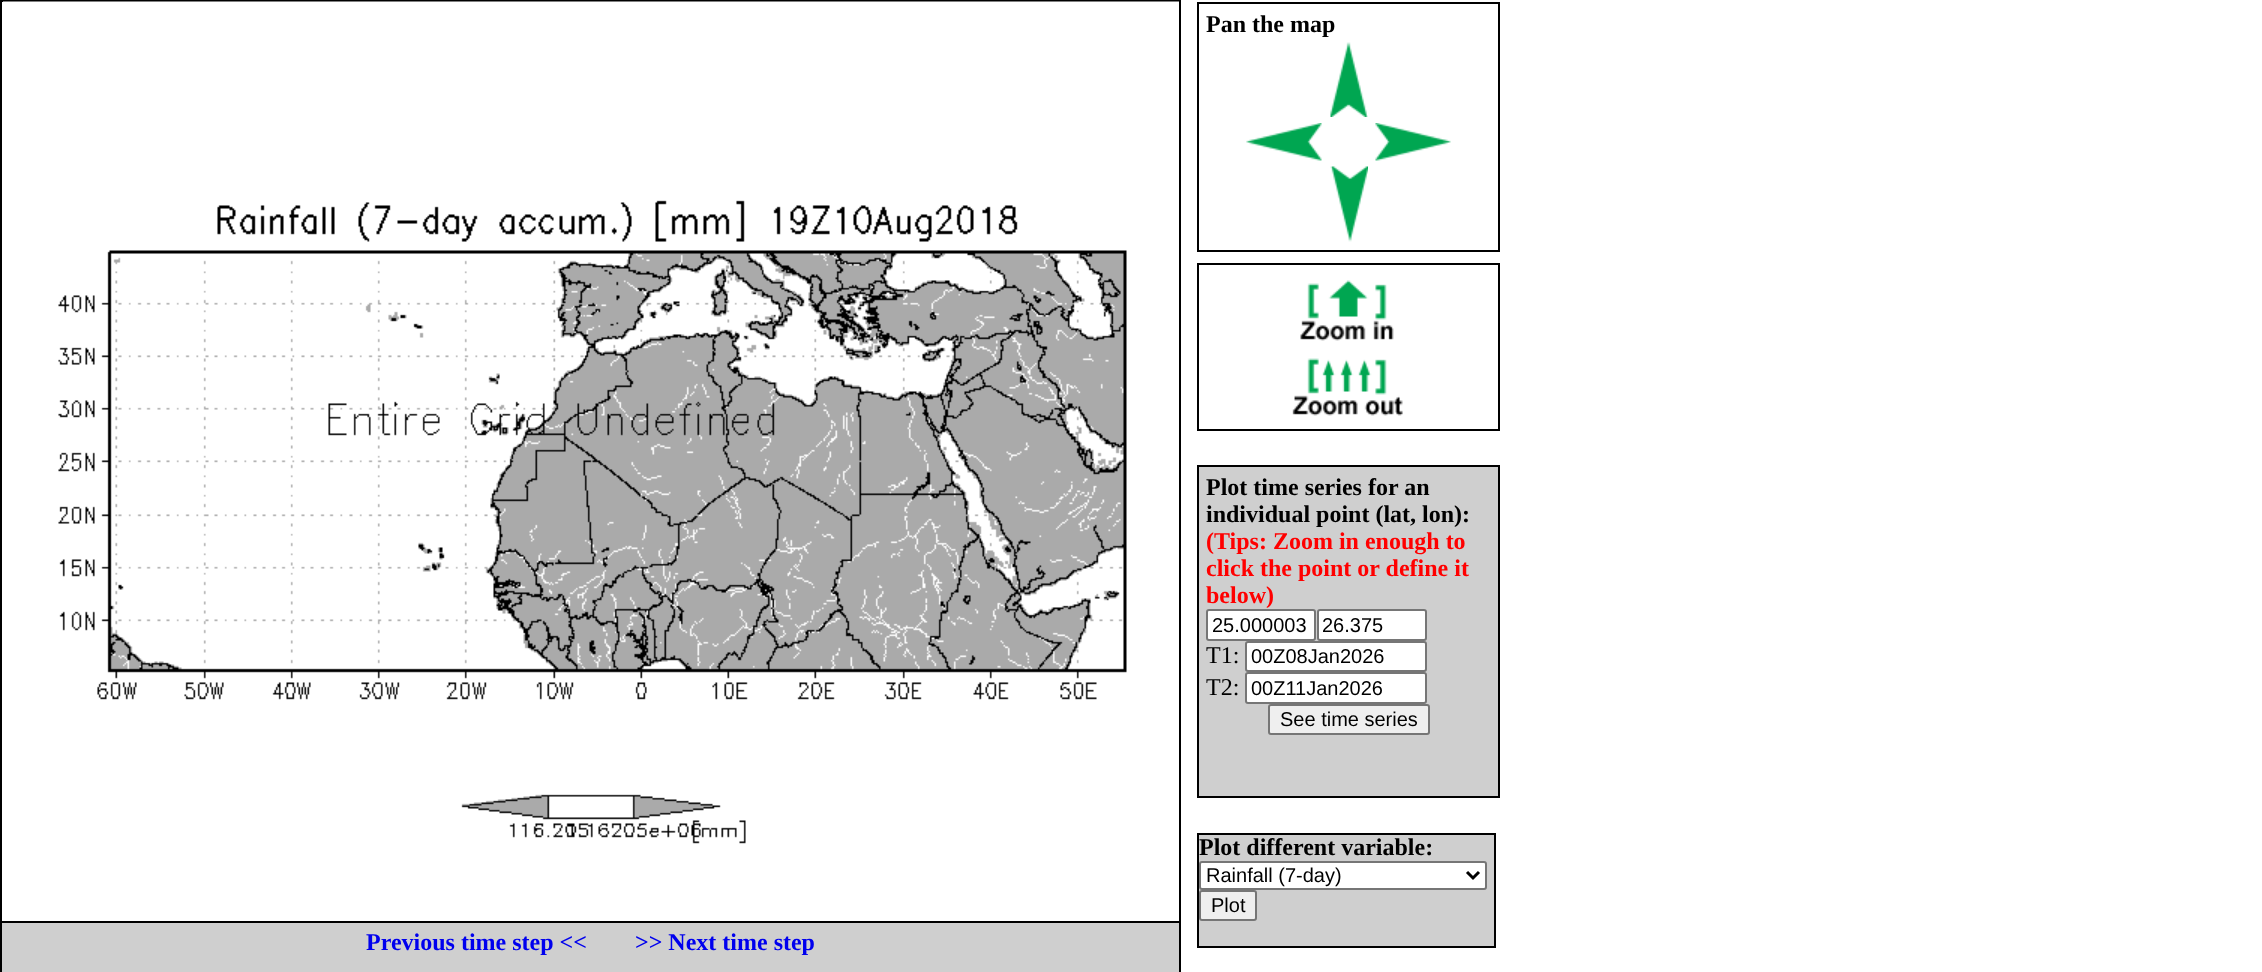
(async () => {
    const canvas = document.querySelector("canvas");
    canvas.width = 2262;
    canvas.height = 972;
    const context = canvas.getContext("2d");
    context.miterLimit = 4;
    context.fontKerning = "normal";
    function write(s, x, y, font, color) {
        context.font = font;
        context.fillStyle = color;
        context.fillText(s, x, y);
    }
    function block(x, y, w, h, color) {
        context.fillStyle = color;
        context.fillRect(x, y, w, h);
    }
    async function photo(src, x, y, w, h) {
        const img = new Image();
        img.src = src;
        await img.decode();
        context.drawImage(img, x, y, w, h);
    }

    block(0, 0, 2262, 972, "rgb(255, 255, 255)");
    context.strokeStyle = "rgb(0, 0, 0)";
    context.lineWidth = 2;
    context.strokeRect(1, 1, 1179, 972);
    await photo("media/1.png", 3, 1, 1176, 843);
    context.strokeRect(1198, 3, 301, 248);
    write("Pan the map", 1206, 32, "bold 24px Liberation Serif", "rgb(0, 0, 0)");
    await photo("media/2.png", 1330, 42, 38, 75);
    await photo("media/3.png", 1246, 123, 76, 38);
    await photo("media/4.png", 1375, 123, 76, 38);
    await photo("media/5.png", 1330, 166, 38, 76);
    context.strokeRect(1198, 264, 301, 166);
    await photo("media/6.png", 1300, 280, 94, 61);
    await photo("media/7.png", 1292, 358, 111, 58);
    context.fillStyle = "rgb(207, 207, 207)";
    context.beginPath();
    context.rect(1198, 466, 301, 331);
    context.fill();
    context.stroke();
    write("Plot time series for an", 1206, 495, "bold 24px Liberation Serif", "rgb(0, 0, 0)");
    write("individual point (lat, lon):", 1206, 522, "bold 24px Liberation Serif", "rgb(0, 0, 0)");
    write("(Tips: Zoom in enough to", 1206, 549, "bold 24px Liberation Serif", "rgb(255, 0, 0)");
    write("click the point or define it", 1206, 576, "bold 24px Liberation Serif", "rgb(255, 0, 0)");
    write("below)", 1206, 603, "bold 24px Liberation Serif", "rgb(255, 0, 0)");
    context.fillStyle = "rgb(255, 255, 255)";
    context.beginPath();
    context.roundRect(1207, 610, 108, 30, 2);
    context.fill();
    context.strokeStyle = "rgb(118, 118, 118)";
    context.stroke();
    write("25.000003", 1212, 632, "20px Liberation Sans", "rgb(0, 0, 0)");
    context.fillStyle = "rgb(255, 255, 255)";
    context.beginPath();
    context.roundRect(1318, 610, 108, 30, 2);
    context.fill();
    context.stroke();
    write("26.375", 1322, 632, "20px Liberation Sans", "rgb(0, 0, 0)");
    write("T1:", 1206, 663, "24px Liberation Serif", "rgb(0, 0, 0)");
    context.fillStyle = "rgb(255, 255, 255)";
    context.beginPath();
    context.roundRect(1246, 642, 180, 29, 2);
    context.fill();
    context.stroke();
    write("00Z08Jan2026", 1251, 663, "20px Liberation Sans", "rgb(0, 0, 0)");
    write("T2:", 1206, 695, "24px Liberation Serif", "rgb(0, 0, 0)");
    context.fillStyle = "rgb(255, 255, 255)";
    context.beginPath();
    context.roundRect(1246, 673, 180, 30, 2);
    context.fill();
    context.stroke();
    write("00Z11Jan2026", 1251, 695, "20px Liberation Sans", "rgb(0, 0, 0)");
    context.fillStyle = "rgb(239, 239, 239)";
    context.beginPath();
    context.roundRect(1269, 705, 160, 29, 2);
    context.fill();
    context.stroke();
    write("See time series", 1280, 726, "20px Liberation Sans", "rgb(0, 0, 0)");
    context.fillStyle = "rgb(207, 207, 207)";
    context.beginPath();
    context.rect(1198, 834, 297, 113);
    context.fill();
    context.strokeStyle = "rgb(0, 0, 0)";
    context.stroke();
    write("Plot different variable:", 1199, 855, "bold 24px Liberation Serif", "rgb(0, 0, 0)");
    context.fillStyle = "rgb(255, 255, 255)";
    context.beginPath();
    context.roundRect(1200, 862, 286, 27, 2);
    context.fill();
    context.strokeStyle = "rgb(118, 118, 118)";
    context.stroke();
    context.beginPath();
    context.moveTo(1467, 872);
    context.lineTo(1473, 878);
    context.lineTo(1479, 872);
    context.strokeStyle = "rgb(0, 0, 0)";
    context.lineWidth = 3;
    context.stroke();
    write("Rainfall (7-day)", 1206, 882, "20px Liberation Sans", "rgb(0, 0, 0)");
    context.fillStyle = "rgb(239, 239, 239)";
    context.beginPath();
    context.roundRect(1200, 891, 56, 29, 2);
    context.fill();
    context.strokeStyle = "rgb(118, 118, 118)";
    context.lineWidth = 2;
    context.stroke();
    write("Plot", 1211, 912, "20px Liberation Sans", "rgb(0, 0, 0)");
    context.fillStyle = "rgb(207, 207, 207)";
    context.beginPath();
    context.rect(1, 922, 1179, 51);
    context.fill();
    context.strokeStyle = "rgb(0, 0, 0)";
    context.stroke();
    write("Previous time step <<", 366, 950, "bold 24px Liberation Serif", "rgb(0, 0, 238)");
    write(">> Next time step", 635, 950, "bold 24px Liberation Serif", "rgb(0, 0, 238)");
})();
